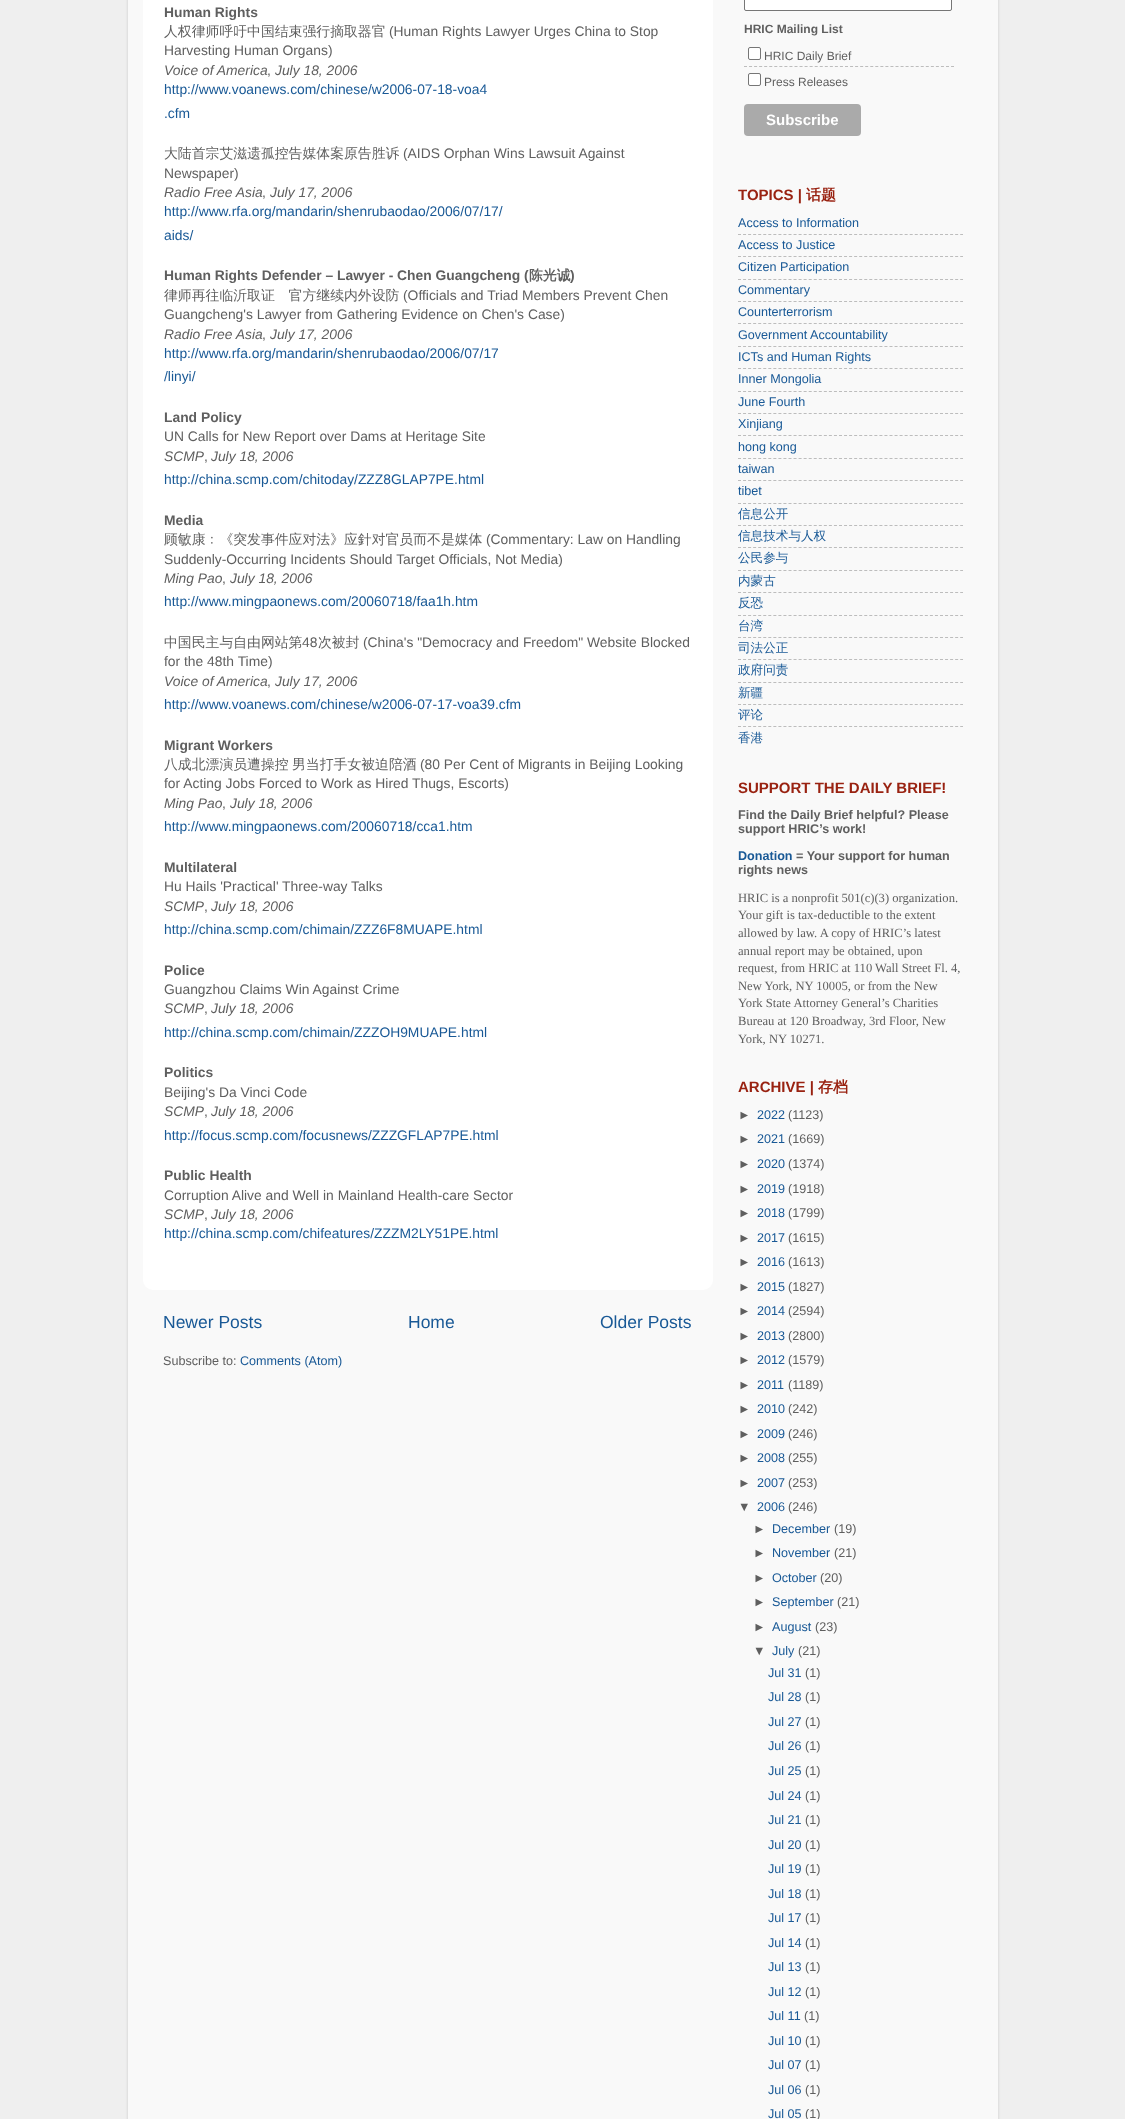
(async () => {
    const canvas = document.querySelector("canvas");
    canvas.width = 1125;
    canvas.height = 2119;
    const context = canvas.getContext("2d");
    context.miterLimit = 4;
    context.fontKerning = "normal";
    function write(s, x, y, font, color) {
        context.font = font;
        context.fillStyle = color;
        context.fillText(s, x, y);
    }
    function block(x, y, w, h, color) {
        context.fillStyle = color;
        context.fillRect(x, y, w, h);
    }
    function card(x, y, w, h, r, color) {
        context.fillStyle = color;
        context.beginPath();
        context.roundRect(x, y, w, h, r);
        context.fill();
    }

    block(0, 0, 1125, 2119, "rgb(239, 239, 239)");
    context.fillStyle = "rgba(0, 0, 0, 0.15)";
    context.filter = "blur(1.5px)";
    context.beginPath();
    context.roundRect(128, -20, 870, 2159, 15);
    context.fill();
    context.filter = "none";
    block(128, 0, 870, 2119, "rgb(249, 249, 249)");
    card(143, -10, 570, 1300, 10, "rgb(255, 255, 255)");
    write("Human Rights", 164, 17, "bold 13.85px Liberation Sans", "rgb(95, 95, 95)");
    write("人权律师呼吁中国结束强行摘取器官", 164, 36, "500 13.85px WenQuanYi Zen Hei", "rgb(95, 95, 95)");
    write("(Human Rights Lawyer Urges China to Stop", 389, 36, "13.85px Liberation Sans", "rgb(95, 95, 95)");
    write("Harvesting Human Organs)", 164, 55, "13.85px Liberation Sans", "rgb(95, 95, 95)");
    write("Voice of America", 164, 75, "italic 13.85px Liberation Sans", "rgb(95, 95, 95)");
    write(",", 267, 75, "13.85px Liberation Sans", "rgb(95, 95, 95)");
    write("July 18, 2006", 275, 75, "italic 13.85px Liberation Sans", "rgb(95, 95, 95)");
    write("http://www.voanews.com/chinese/w2006-07-18-voa4", 164, 94, "13.85px Arimo", "rgb(25, 89, 150)");
    write(".cfm", 164, 118, "13.85px Arimo", "rgb(25, 89, 150)");
    write("大陆首宗艾滋遗孤控告媒体案原告胜诉", 164, 158, "500 13.85px WenQuanYi Zen Hei", "rgb(95, 95, 95)");
    write("(AIDS Orphan Wins Lawsuit Against", 403, 158, "13.85px Liberation Sans", "rgb(95, 95, 95)");
    write("Newspaper)", 164, 178, "13.85px Liberation Sans", "rgb(95, 95, 95)");
    write("Radio Free Asia", 164, 197, "italic 13.85px Liberation Sans", "rgb(95, 95, 95)");
    write(",", 262, 197, "13.85px Liberation Sans", "rgb(95, 95, 95)");
    write("July 17, 2006", 270, 197, "italic 13.85px Liberation Sans", "rgb(95, 95, 95)");
    write("http://www.rfa.org/mandarin/shenrubaodao/2006/07/17/", 164, 216, "13.85px Arimo", "rgb(25, 89, 150)");
    write("aids/", 164, 240, "13.85px Arimo", "rgb(25, 89, 150)");
    write("Human Rights Defender – Lawyer - Chen Guangcheng (", 164, 280, "bold 13.85px Liberation Sans", "rgb(95, 95, 95)");
    write("陈光诚", 529, 280, "bold 13.85px WenQuanYi Zen Hei", "rgb(95, 95, 95)");
    write(")", 570, 280, "bold 13.85px Liberation Sans", "rgb(95, 95, 95)");
    write("律师再往临沂取证　官方继续内外设防", 164, 300, "500 13.85px WenQuanYi Zen Hei", "rgb(95, 95, 95)");
    write("(Officials and Triad Members Prevent Chen", 403, 300, "13.85px Liberation Sans", "rgb(95, 95, 95)");
    write("Guangcheng's Lawyer from Gathering Evidence on Chen's Case)", 164, 319, "13.85px Liberation Sans", "rgb(95, 95, 95)");
    write("Radio Free Asia", 164, 339, "italic 13.85px Liberation Sans", "rgb(95, 95, 95)");
    write(",", 262, 339, "13.85px Liberation Sans", "rgb(95, 95, 95)");
    write("July 17, 2006", 270, 339, "italic 13.85px Liberation Sans", "rgb(95, 95, 95)");
    write("http://www.rfa.org/mandarin/shenrubaodao/2006/07/17", 164, 358, "13.85px Arimo", "rgb(25, 89, 150)");
    write("/linyi/", 164, 381, "13.85px Arimo", "rgb(25, 89, 150)");
    write("Land Policy", 164, 422, "bold 13.85px Liberation Sans", "rgb(95, 95, 95)");
    write("UN Calls for New Report over Dams at Heritage Site", 164, 441, "13.85px Liberation Sans", "rgb(95, 95, 95)");
    write("SCMP", 164, 461, "italic 13.85px Liberation Sans", "rgb(95, 95, 95)");
    write(",", 204, 461, "13.85px Liberation Sans", "rgb(95, 95, 95)");
    write("July 18, 2006", 211, 461, "italic 13.85px Liberation Sans", "rgb(95, 95, 95)");
    write("http://china.scmp.com/chitoday/ZZZ8GLAP7PE.html", 164, 484, "13.85px Arimo", "rgb(25, 89, 150)");
    write("Media", 164, 525, "bold 13.85px Liberation Sans", "rgb(95, 95, 95)");
    write("顾敏康﹕《突发事件应对法》应針对官员而不是媒体", 164, 544, "500 13.85px WenQuanYi Zen Hei", "rgb(95, 95, 95)");
    write("(Commentary: Law on Handling", 486, 544, "13.85px Liberation Sans", "rgb(95, 95, 95)");
    write("Suddenly-Occurring Incidents Should Target Officials, Not Media)", 164, 564, "13.85px Liberation Sans", "rgb(95, 95, 95)");
    write("Ming Pao", 164, 583, "italic 13.85px Liberation Sans", "rgb(95, 95, 95)");
    write(",", 222, 583, "13.85px Liberation Sans", "rgb(95, 95, 95)");
    write("July 18, 2006", 230, 583, "italic 13.85px Liberation Sans", "rgb(95, 95, 95)");
    write("http://www.mingpaonews.com/20060718/faa1h.htm", 164, 606, "13.85px Arimo", "rgb(25, 89, 150)");
    write("中国民主与自由网站第", 164, 647, "500 13.85px WenQuanYi Zen Hei", "rgb(95, 95, 95)");
    write("48", 302, 647, "13.85px Liberation Sans", "rgb(95, 95, 95)");
    write("次被封", 318, 647, "500 13.85px WenQuanYi Zen Hei", "rgb(95, 95, 95)");
    write("(China's \"Democracy and Freedom\" Website Blocked", 363, 647, "13.85px Liberation Sans", "rgb(95, 95, 95)");
    write("for the 48th Time)", 164, 666, "13.85px Liberation Sans", "rgb(95, 95, 95)");
    write("Voice of America", 164, 686, "italic 13.85px Liberation Sans", "rgb(95, 95, 95)");
    write(",", 267, 686, "13.85px Liberation Sans", "rgb(95, 95, 95)");
    write("July 17, 2006", 275, 686, "italic 13.85px Liberation Sans", "rgb(95, 95, 95)");
    write("http://www.voanews.com/chinese/w2006-07-17-voa39.cfm", 164, 709, "13.85px Arimo", "rgb(25, 89, 150)");
    write("Migrant Workers", 164, 750, "bold 13.85px Liberation Sans", "rgb(95, 95, 95)");
    write("八成北漂演员遭操控", 164, 769, "500 13.85px WenQuanYi Zen Hei", "rgb(95, 95, 95)");
    write("男当打手女被迫陪酒", 292, 769, "500 13.85px WenQuanYi Zen Hei", "rgb(95, 95, 95)");
    write("(80 Per Cent of Migrants in Beijing Looking", 420, 769, "13.85px Liberation Sans", "rgb(95, 95, 95)");
    write("for Acting Jobs Forced to Work as Hired Thugs, Escorts)", 164, 788, "13.85px Liberation Sans", "rgb(95, 95, 95)");
    write("Ming Pao", 164, 808, "italic 13.85px Liberation Sans", "rgb(95, 95, 95)");
    write(",", 222, 808, "13.85px Liberation Sans", "rgb(95, 95, 95)");
    write("July 18, 2006", 230, 808, "italic 13.85px Liberation Sans", "rgb(95, 95, 95)");
    write("http://www.mingpaonews.com/20060718/cca1.htm", 164, 831, "13.85px Arimo", "rgb(25, 89, 150)");
    write("Multilateral", 164, 872, "bold 13.85px Liberation Sans", "rgb(95, 95, 95)");
    write("Hu Hails 'Practical' Three-way Talks", 164, 891, "13.85px Liberation Sans", "rgb(95, 95, 95)");
    write("SCMP", 164, 911, "italic 13.85px Liberation Sans", "rgb(95, 95, 95)");
    write(",", 204, 911, "13.85px Liberation Sans", "rgb(95, 95, 95)");
    write("July 18, 2006", 211, 911, "italic 13.85px Liberation Sans", "rgb(95, 95, 95)");
    write("http://china.scmp.com/chimain/ZZZ6F8MUAPE.html", 164, 934, "13.85px Arimo", "rgb(25, 89, 150)");
    write("Police", 164, 975, "bold 13.85px Liberation Sans", "rgb(95, 95, 95)");
    write("Guangzhou Claims Win Against Crime", 164, 994, "13.85px Liberation Sans", "rgb(95, 95, 95)");
    write("SCMP", 164, 1013, "italic 13.85px Liberation Sans", "rgb(95, 95, 95)");
    write(",", 204, 1013, "13.85px Liberation Sans", "rgb(95, 95, 95)");
    write("July 18, 2006", 211, 1013, "italic 13.85px Liberation Sans", "rgb(95, 95, 95)");
    write("http://china.scmp.com/chimain/ZZZOH9MUAPE.html", 164, 1037, "13.85px Arimo", "rgb(25, 89, 150)");
    write("Politics", 164, 1077, "bold 13.85px Liberation Sans", "rgb(95, 95, 95)");
    write("Beijing's Da Vinci Code", 164, 1097, "13.85px Liberation Sans", "rgb(95, 95, 95)");
    write("SCMP", 164, 1116, "italic 13.85px Liberation Sans", "rgb(95, 95, 95)");
    write(",", 204, 1116, "13.85px Liberation Sans", "rgb(95, 95, 95)");
    write("July 18, 2006", 211, 1116, "italic 13.85px Liberation Sans", "rgb(95, 95, 95)");
    write("http://focus.scmp.com/focusnews/ZZZGFLAP7PE.html", 164, 1140, "13.85px Arimo", "rgb(25, 89, 150)");
    write("Public Health", 164, 1180, "bold 13.85px Liberation Sans", "rgb(95, 95, 95)");
    write("Corruption Alive and Well in Mainland Health-care Sector", 164, 1200, "13.85px Liberation Sans", "rgb(95, 95, 95)");
    write("SCMP", 164, 1219, "italic 13.85px Liberation Sans", "rgb(95, 95, 95)");
    write(",", 204, 1219, "13.85px Liberation Sans", "rgb(95, 95, 95)");
    write("July 18, 2006", 211, 1219, "italic 13.85px Liberation Sans", "rgb(95, 95, 95)");
    write("http://china.scmp.com/chifeatures/ZZZM2LY51PE.html", 164, 1238, "13.85px Arimo", "rgb(25, 89, 150)");
    write("Newer Posts", 163, 1328, "17.5px Arimo", "rgb(25, 89, 150)");
    write("Home", 408, 1328, "17.5px Arimo", "rgb(25, 89, 150)");
    write("Older Posts", 600, 1328, "17.5px Arimo", "rgb(25, 89, 150)");
    write("Subscribe to:", 163, 1365, "12.6px Arimo", "rgb(95, 95, 95)");
    write("Comments (Atom)", 240, 1365, "12.6px Arimo", "rgb(25, 89, 150)");
    context.fillStyle = "rgb(255, 255, 255)";
    context.beginPath();
    context.roundRect(744.5, -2.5, 207, 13, 1.5);
    context.fill();
    context.strokeStyle = "rgb(118, 118, 118)";
    context.stroke();
    write("HRIC Mailing List", 744, 33, "bold 12px Liberation Sans", "rgb(95, 95, 95)");
    context.fillStyle = "rgb(255, 255, 255)";
    context.beginPath();
    context.roundRect(748.5, 47.5, 12, 12, 1.5);
    context.fill();
    context.stroke();
    write("HRIC Daily Brief", 764, 60, "12px Liberation Sans", "rgb(95, 95, 95)");
    context.beginPath();
    context.moveTo(744, 66.5);
    context.lineTo(954, 66.5);
    context.strokeStyle = "rgb(189, 189, 189)";
    context.setLineDash([3, 2.05]);
    context.stroke();
    context.fillStyle = "rgb(255, 255, 255)";
    context.beginPath();
    context.roundRect(748.5, 73.5, 12, 12, 1.5);
    context.fill();
    context.strokeStyle = "rgb(118, 118, 118)";
    context.setLineDash([]);
    context.stroke();
    write("Press Releases", 764, 86, "12px Liberation Sans", "rgb(95, 95, 95)");
    card(744, 104, 117, 32, 4, "rgb(170, 170, 170)");
    write("Subscribe", 766, 125, "bold 15px Liberation Sans", "rgb(255, 255, 255)");
    write("TOPICS |", 738, 200, "bold 15px Liberation Sans", "rgb(153, 34, 17)");
    write("话题", 806, 200, "bold 15px WenQuanYi Zen Hei", "rgb(153, 34, 17)");
    write("Access to Information", 738, 227, "12.6px Arimo", "rgb(25, 89, 150)");
    context.beginPath();
    context.moveTo(738, 234.5);
    context.lineTo(963, 234.5);
    context.strokeStyle = "rgb(189, 189, 189)";
    context.setLineDash([3, 2.05]);
    context.stroke();
    write("Access to Justice", 738, 249, "12.6px Arimo", "rgb(25, 89, 150)");
    context.beginPath();
    context.moveTo(738, 256.5);
    context.lineTo(963, 256.5);
    context.stroke();
    write("Citizen Participation", 738, 271, "12.6px Arimo", "rgb(25, 89, 150)");
    context.beginPath();
    context.moveTo(738, 279.5);
    context.lineTo(963, 279.5);
    context.stroke();
    write("Commentary", 738, 294, "12.6px Arimo", "rgb(25, 89, 150)");
    context.beginPath();
    context.moveTo(738, 301.5);
    context.lineTo(963, 301.5);
    context.stroke();
    write("Counterterrorism", 738, 316, "12.6px Arimo", "rgb(25, 89, 150)");
    context.beginPath();
    context.moveTo(738, 323.5);
    context.lineTo(963, 323.5);
    context.stroke();
    write("Government Accountability", 738, 339, "12.6px Arimo", "rgb(25, 89, 150)");
    context.beginPath();
    context.moveTo(738, 346.5);
    context.lineTo(963, 346.5);
    context.stroke();
    write("ICTs and Human Rights", 738, 361, "12.6px Arimo", "rgb(25, 89, 150)");
    context.beginPath();
    context.moveTo(738, 368.5);
    context.lineTo(963, 368.5);
    context.stroke();
    write("Inner Mongolia", 738, 383, "12.6px Arimo", "rgb(25, 89, 150)");
    context.beginPath();
    context.moveTo(738, 391.5);
    context.lineTo(963, 391.5);
    context.stroke();
    write("June Fourth", 738, 406, "12.6px Arimo", "rgb(25, 89, 150)");
    context.beginPath();
    context.moveTo(738, 413.5);
    context.lineTo(963, 413.5);
    context.stroke();
    write("Xinjiang", 738, 428, "12.6px Arimo", "rgb(25, 89, 150)");
    context.beginPath();
    context.moveTo(738, 435.5);
    context.lineTo(963, 435.5);
    context.stroke();
    write("hong kong", 738, 451, "12.6px Arimo", "rgb(25, 89, 150)");
    context.beginPath();
    context.moveTo(738, 458.5);
    context.lineTo(963, 458.5);
    context.stroke();
    write("taiwan", 738, 473, "12.6px Arimo", "rgb(25, 89, 150)");
    context.beginPath();
    context.moveTo(738, 480.5);
    context.lineTo(963, 480.5);
    context.stroke();
    write("tibet", 738, 495, "12.6px Arimo", "rgb(25, 89, 150)");
    context.beginPath();
    context.moveTo(738, 503.5);
    context.lineTo(963, 503.5);
    context.stroke();
    write("信息公开", 738, 518, "500 12.6px WenQuanYi Zen Hei", "rgb(25, 89, 150)");
    context.beginPath();
    context.moveTo(738, 525.5);
    context.lineTo(963, 525.5);
    context.stroke();
    write("信息技术与人权", 738, 540, "500 12.6px WenQuanYi Zen Hei", "rgb(25, 89, 150)");
    context.beginPath();
    context.moveTo(738, 547.5);
    context.lineTo(963, 547.5);
    context.stroke();
    write("公民参与", 738, 562, "500 12.6px WenQuanYi Zen Hei", "rgb(25, 89, 150)");
    context.beginPath();
    context.moveTo(738, 570.5);
    context.lineTo(963, 570.5);
    context.stroke();
    write("内蒙古", 738, 585, "500 12.6px WenQuanYi Zen Hei", "rgb(25, 89, 150)");
    context.beginPath();
    context.moveTo(738, 592.5);
    context.lineTo(963, 592.5);
    context.stroke();
    write("反恐", 738, 607, "500 12.6px WenQuanYi Zen Hei", "rgb(25, 89, 150)");
    context.beginPath();
    context.moveTo(738, 615.5);
    context.lineTo(963, 615.5);
    context.stroke();
    write("台湾", 738, 630, "500 12.6px WenQuanYi Zen Hei", "rgb(25, 89, 150)");
    context.beginPath();
    context.moveTo(738, 637.5);
    context.lineTo(963, 637.5);
    context.stroke();
    write("司法公正", 738, 652, "500 12.6px WenQuanYi Zen Hei", "rgb(25, 89, 150)");
    context.beginPath();
    context.moveTo(738, 659.5);
    context.lineTo(963, 659.5);
    context.stroke();
    write("政府问责", 738, 674, "500 12.6px WenQuanYi Zen Hei", "rgb(25, 89, 150)");
    context.beginPath();
    context.moveTo(738, 682.5);
    context.lineTo(963, 682.5);
    context.stroke();
    write("新疆", 738, 697, "500 12.6px WenQuanYi Zen Hei", "rgb(25, 89, 150)");
    context.beginPath();
    context.moveTo(738, 704.5);
    context.lineTo(963, 704.5);
    context.stroke();
    write("评论", 738, 719, "500 12.6px WenQuanYi Zen Hei", "rgb(25, 89, 150)");
    context.beginPath();
    context.moveTo(738, 726.5);
    context.lineTo(963, 726.5);
    context.stroke();
    write("香港", 738, 742, "500 12.6px WenQuanYi Zen Hei", "rgb(25, 89, 150)");
    write("SUPPORT THE DAILY BRIEF!", 738, 793, "bold 15px Liberation Sans", "rgb(153, 34, 17)");
    write("Find the Daily Brief helpful? Please", 738, 819, "bold 12.6px Liberation Sans", "rgb(95, 95, 95)");
    write("support HRIC’s work!", 738, 833, "bold 12.6px Liberation Sans", "rgb(95, 95, 95)");
    write("Donation", 738, 860, "bold 12.6px Liberation Sans", "rgb(25, 89, 150)");
    write("= Your support for human", 796, 860, "bold 12.6px Liberation Sans", "rgb(95, 95, 95)");
    write("rights news", 738, 874, "bold 12.6px Liberation Sans", "rgb(95, 95, 95)");
    write("HRIC is a nonprofit 501(c)(3) organization.", 738, 902, "12.6px Liberation Serif", "rgb(95, 95, 95)");
    write("Your gift is tax-deductible to the extent", 738, 919, "12.6px Liberation Serif", "rgb(95, 95, 95)");
    write("allowed by law. A copy of HRIC’s latest", 738, 937, "12.6px Liberation Serif", "rgb(95, 95, 95)");
    write("annual report may be obtained, upon", 738, 955, "12.6px Liberation Serif", "rgb(95, 95, 95)");
    write("request, from HRIC at 110 Wall Street Fl. 4,", 738, 972, "12.6px Liberation Serif", "rgb(95, 95, 95)");
    write("New York, NY 10005, or from the New", 738, 990, "12.6px Liberation Serif", "rgb(95, 95, 95)");
    write("York State Attorney General’s Charities", 738, 1007, "12.6px Liberation Serif", "rgb(95, 95, 95)");
    write("Bureau at 120 Broadway, 3rd Floor, New", 738, 1025, "12.6px Liberation Serif", "rgb(95, 95, 95)");
    write("York, NY 10271.", 738, 1043, "12.6px Liberation Serif", "rgb(95, 95, 95)");
    write("ARCHIVE |", 738, 1092, "bold 15px Liberation Sans", "rgb(153, 34, 17)");
    write("存档", 818, 1092, "bold 15px WenQuanYi Zen Hei", "rgb(153, 34, 17)");
    write("►", 738, 1119, "12.6px Liberation Sans", "rgb(95, 95, 95)");
    write("2022", 757, 1119, "12.6px Arimo", "rgb(25, 89, 150)");
    write("(1123)", 788, 1119, "12.6px Arimo", "rgb(95, 95, 95)");
    write("►", 738, 1143, "12.6px Liberation Sans", "rgb(95, 95, 95)");
    write("2021", 757, 1143, "12.6px Arimo", "rgb(25, 89, 150)");
    write("(1669)", 788, 1143, "12.6px Arimo", "rgb(95, 95, 95)");
    write("►", 738, 1168, "12.6px Liberation Sans", "rgb(95, 95, 95)");
    write("2020", 757, 1168, "12.6px Arimo", "rgb(25, 89, 150)");
    write("(1374)", 788, 1168, "12.6px Arimo", "rgb(95, 95, 95)");
    write("►", 738, 1193, "12.6px Liberation Sans", "rgb(95, 95, 95)");
    write("2019", 757, 1193, "12.6px Arimo", "rgb(25, 89, 150)");
    write("(1918)", 788, 1193, "12.6px Arimo", "rgb(95, 95, 95)");
    write("►", 738, 1217, "12.6px Liberation Sans", "rgb(95, 95, 95)");
    write("2018", 757, 1217, "12.6px Arimo", "rgb(25, 89, 150)");
    write("(1799)", 788, 1217, "12.6px Arimo", "rgb(95, 95, 95)");
    write("►", 738, 1242, "12.6px Liberation Sans", "rgb(95, 95, 95)");
    write("2017", 757, 1242, "12.6px Arimo", "rgb(25, 89, 150)");
    write("(1615)", 788, 1242, "12.6px Arimo", "rgb(95, 95, 95)");
    write("►", 738, 1266, "12.6px Liberation Sans", "rgb(95, 95, 95)");
    write("2016", 757, 1266, "12.6px Arimo", "rgb(25, 89, 150)");
    write("(1613)", 788, 1266, "12.6px Arimo", "rgb(95, 95, 95)");
    write("►", 738, 1291, "12.6px Liberation Sans", "rgb(95, 95, 95)");
    write("2015", 757, 1291, "12.6px Arimo", "rgb(25, 89, 150)");
    write("(1827)", 788, 1291, "12.6px Arimo", "rgb(95, 95, 95)");
    write("►", 738, 1315, "12.6px Liberation Sans", "rgb(95, 95, 95)");
    write("2014", 757, 1315, "12.6px Arimo", "rgb(25, 89, 150)");
    write("(2594)", 788, 1315, "12.6px Arimo", "rgb(95, 95, 95)");
    write("►", 738, 1340, "12.6px Liberation Sans", "rgb(95, 95, 95)");
    write("2013", 757, 1340, "12.6px Arimo", "rgb(25, 89, 150)");
    write("(2800)", 788, 1340, "12.6px Arimo", "rgb(95, 95, 95)");
    write("►", 738, 1364, "12.6px Liberation Sans", "rgb(95, 95, 95)");
    write("2012", 757, 1364, "12.6px Arimo", "rgb(25, 89, 150)");
    write("(1579)", 788, 1364, "12.6px Arimo", "rgb(95, 95, 95)");
    write("►", 738, 1389, "12.6px Liberation Sans", "rgb(95, 95, 95)");
    write("2011", 757, 1389, "12.6px Arimo", "rgb(25, 89, 150)");
    write("(1189)", 788, 1389, "12.6px Arimo", "rgb(95, 95, 95)");
    write("►", 738, 1413, "12.6px Liberation Sans", "rgb(95, 95, 95)");
    write("2010", 757, 1413, "12.6px Arimo", "rgb(25, 89, 150)");
    write("(242)", 788, 1413, "12.6px Arimo", "rgb(95, 95, 95)");
    write("►", 738, 1438, "12.6px Liberation Sans", "rgb(95, 95, 95)");
    write("2009", 757, 1438, "12.6px Arimo", "rgb(25, 89, 150)");
    write("(246)", 788, 1438, "12.6px Arimo", "rgb(95, 95, 95)");
    write("►", 738, 1462, "12.6px Liberation Sans", "rgb(95, 95, 95)");
    write("2008", 757, 1462, "12.6px Arimo", "rgb(25, 89, 150)");
    write("(255)", 788, 1462, "12.6px Arimo", "rgb(95, 95, 95)");
    write("►", 738, 1487, "12.6px Liberation Sans", "rgb(95, 95, 95)");
    write("2007", 757, 1487, "12.6px Arimo", "rgb(25, 89, 150)");
    write("(253)", 788, 1487, "12.6px Arimo", "rgb(95, 95, 95)");
    write("▼", 738, 1511, "12.6px Liberation Sans", "rgb(95, 95, 95)");
    write("2006", 757, 1511, "12.6px Arimo", "rgb(25, 89, 150)");
    write("(246)", 788, 1511, "12.6px Arimo", "rgb(95, 95, 95)");
    write("►", 753, 1533, "12.6px Liberation Sans", "rgb(95, 95, 95)");
    write("December", 772, 1533, "12.6px Arimo", "rgb(25, 89, 150)");
    write("(19)", 834, 1533, "12.6px Arimo", "rgb(95, 95, 95)");
    write("►", 753, 1557, "12.6px Liberation Sans", "rgb(95, 95, 95)");
    write("November", 772, 1557, "12.6px Arimo", "rgb(25, 89, 150)");
    write("(21)", 834, 1557, "12.6px Arimo", "rgb(95, 95, 95)");
    write("►", 753, 1582, "12.6px Liberation Sans", "rgb(95, 95, 95)");
    write("October", 772, 1582, "12.6px Arimo", "rgb(25, 89, 150)");
    write("(20)", 820, 1582, "12.6px Arimo", "rgb(95, 95, 95)");
    write("►", 753, 1606, "12.6px Liberation Sans", "rgb(95, 95, 95)");
    write("September", 772, 1606, "12.6px Arimo", "rgb(25, 89, 150)");
    write("(21)", 837, 1606, "12.6px Arimo", "rgb(95, 95, 95)");
    write("►", 753, 1631, "12.6px Liberation Sans", "rgb(95, 95, 95)");
    write("August", 772, 1631, "12.6px Arimo", "rgb(25, 89, 150)");
    write("(23)", 815, 1631, "12.6px Arimo", "rgb(95, 95, 95)");
    write("▼", 753, 1655, "12.6px Liberation Sans", "rgb(95, 95, 95)");
    write("July", 772, 1655, "12.6px Arimo", "rgb(25, 89, 150)");
    write("(21)", 798, 1655, "12.6px Arimo", "rgb(95, 95, 95)");
    write("Jul 31", 768, 1677, "12.6px Arimo", "rgb(25, 89, 150)");
    write("(1)", 805, 1677, "12.6px Arimo", "rgb(95, 95, 95)");
    write("Jul 28", 768, 1701, "12.6px Arimo", "rgb(25, 89, 150)");
    write("(1)", 805, 1701, "12.6px Arimo", "rgb(95, 95, 95)");
    write("Jul 27", 768, 1726, "12.6px Arimo", "rgb(25, 89, 150)");
    write("(1)", 805, 1726, "12.6px Arimo", "rgb(95, 95, 95)");
    write("Jul 26", 768, 1750, "12.6px Arimo", "rgb(25, 89, 150)");
    write("(1)", 805, 1750, "12.6px Arimo", "rgb(95, 95, 95)");
    write("Jul 25", 768, 1775, "12.6px Arimo", "rgb(25, 89, 150)");
    write("(1)", 805, 1775, "12.6px Arimo", "rgb(95, 95, 95)");
    write("Jul 24", 768, 1800, "12.6px Arimo", "rgb(25, 89, 150)");
    write("(1)", 805, 1800, "12.6px Arimo", "rgb(95, 95, 95)");
    write("Jul 21", 768, 1824, "12.6px Arimo", "rgb(25, 89, 150)");
    write("(1)", 805, 1824, "12.6px Arimo", "rgb(95, 95, 95)");
    write("Jul 20", 768, 1849, "12.6px Arimo", "rgb(25, 89, 150)");
    write("(1)", 805, 1849, "12.6px Arimo", "rgb(95, 95, 95)");
    write("Jul 19", 768, 1873, "12.6px Arimo", "rgb(25, 89, 150)");
    write("(1)", 805, 1873, "12.6px Arimo", "rgb(95, 95, 95)");
    write("Jul 18", 768, 1898, "12.6px Arimo", "rgb(25, 89, 150)");
    write("(1)", 805, 1898, "12.6px Arimo", "rgb(95, 95, 95)");
    write("Jul 17", 768, 1922, "12.6px Arimo", "rgb(25, 89, 150)");
    write("(1)", 805, 1922, "12.6px Arimo", "rgb(95, 95, 95)");
    write("Jul 14", 768, 1947, "12.6px Arimo", "rgb(25, 89, 150)");
    write("(1)", 805, 1947, "12.6px Arimo", "rgb(95, 95, 95)");
    write("Jul 13", 768, 1971, "12.6px Arimo", "rgb(25, 89, 150)");
    write("(1)", 805, 1971, "12.6px Arimo", "rgb(95, 95, 95)");
    write("Jul 12", 768, 1996, "12.6px Arimo", "rgb(25, 89, 150)");
    write("(1)", 805, 1996, "12.6px Arimo", "rgb(95, 95, 95)");
    write("Jul 11", 768, 2020, "12.6px Arimo", "rgb(25, 89, 150)");
    write("(1)", 804, 2020, "12.6px Arimo", "rgb(95, 95, 95)");
    write("Jul 10", 768, 2045, "12.6px Arimo", "rgb(25, 89, 150)");
    write("(1)", 805, 2045, "12.6px Arimo", "rgb(95, 95, 95)");
    write("Jul 07", 768, 2069, "12.6px Arimo", "rgb(25, 89, 150)");
    write("(1)", 805, 2069, "12.6px Arimo", "rgb(95, 95, 95)");
    write("Jul 06", 768, 2094, "12.6px Arimo", "rgb(25, 89, 150)");
    write("(1)", 805, 2094, "12.6px Arimo", "rgb(95, 95, 95)");
    write("Jul 05", 768, 2118, "12.6px Arimo", "rgb(25, 89, 150)");
    write("(1)", 805, 2118, "12.6px Arimo", "rgb(95, 95, 95)");
})();
